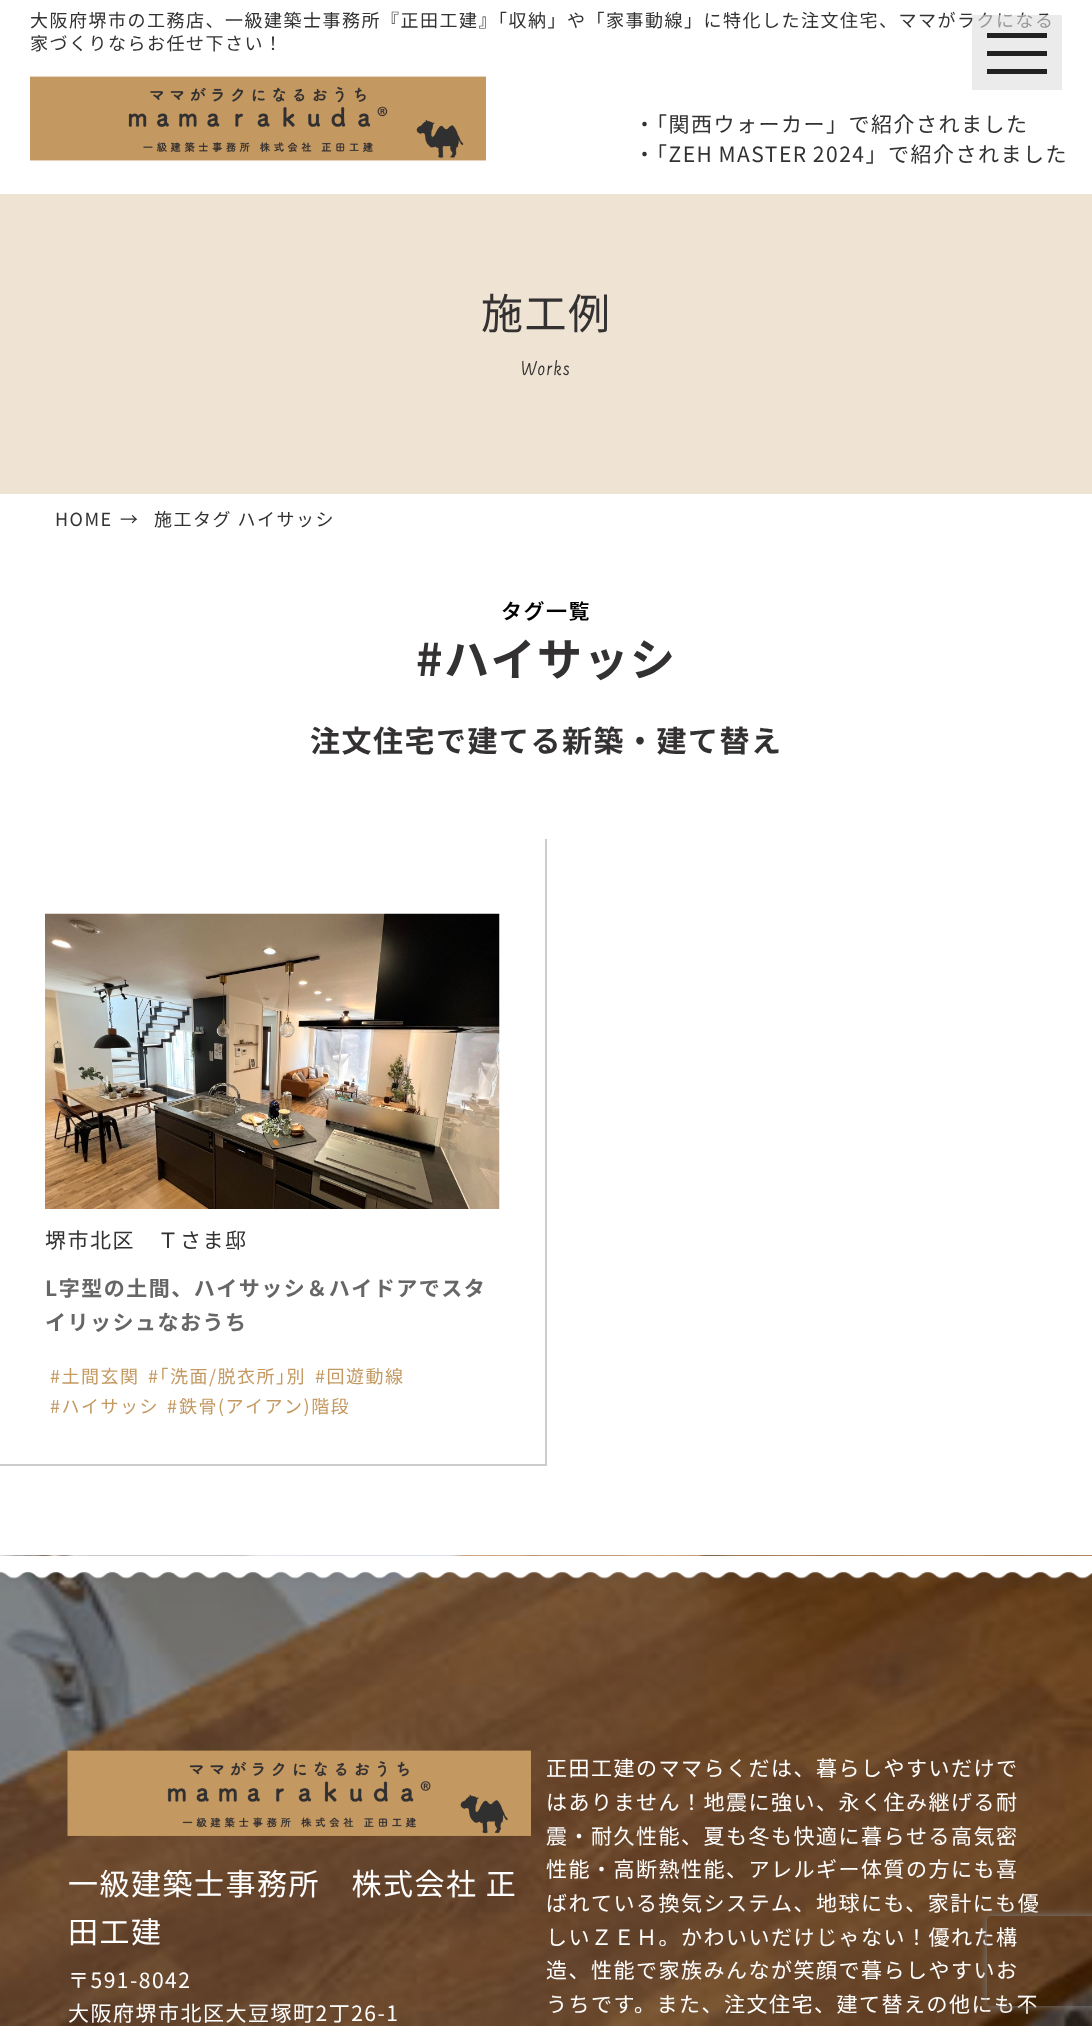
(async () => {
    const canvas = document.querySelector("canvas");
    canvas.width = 1092;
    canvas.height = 2026;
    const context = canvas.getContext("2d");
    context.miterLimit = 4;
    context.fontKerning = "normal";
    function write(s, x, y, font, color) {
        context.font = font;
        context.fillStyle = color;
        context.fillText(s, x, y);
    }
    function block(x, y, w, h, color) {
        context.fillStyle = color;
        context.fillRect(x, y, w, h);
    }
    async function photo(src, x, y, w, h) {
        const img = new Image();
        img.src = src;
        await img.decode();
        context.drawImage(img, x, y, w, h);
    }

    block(0, 0, 1092, 2026, "rgb(255, 255, 255)");
    context.letterSpacing = "1.5px";
    write("大阪府堺市の工務店、一級建築士事務所『正田工建』「収納」や「家事動線」に特化した注文住宅、ママがラクになる", 30, 27, "18px Noto Sans JP", "rgb(51, 49, 50)");
    write("家づくりならお任せ下さい！", 30, 50, "18px Noto Sans JP", "rgb(51, 49, 50)");
    await photo("media/1.png", 30, 76, 456, 85);
    write("・「関西ウォーカー」で紹介されました", 634, 132, "21px Noto Sans JP", "rgb(51, 49, 50)");
    context.wordSpacing = "-1px";
    write("・「ZEH MASTER 2024」で紹介されました", 634, 162, "21px Noto Sans JP", "rgb(51, 49, 50)");
    block(972, 15, 90, 75, "rgba(221, 221, 221, 0.6)");
    block(987, 51, 60, 5, "rgb(34, 34, 34)");
    block(987, 33, 60, 5, "rgb(34, 34, 34)");
    block(987, 69, 60, 5, "rgb(34, 34, 34)");
    block(0, 194, 1092, 300, "rgb(239, 227, 211)");
    context.wordSpacing = "0px";
    write("施工例", 481, 329, "42px Noto Sans JP", "rgb(51, 49, 50)");
    write("Works", 521, 375, "21px Farsan", "rgb(51, 49, 50)");
    write("HOME", 55, 526, "18px Noto Sans JP", "rgb(51, 49, 50)");
    write("→", 120, 526, "18px Noto Sans JP", "rgb(51, 49, 50)");
    write("施工タグ ハイサッシ", 154, 526, "18px Noto Sans JP", "rgb(51, 49, 50)");
    write("タグ一覧", 501, 619, "600 21px Noto Sans JP", "rgb(0, 0, 0)");
    write("#ハイサッシ", 416, 676, "bold 45px Noto Sans JP", "rgb(51, 49, 50)");
    write("注文住宅で建てる新築・建て替え", 310, 752, "bold 30px Noto Sans JP", "rgb(51, 49, 50)");
    block(545, 839, 2, 627, "rgb(204, 204, 204)");
    block(0, 1464, 546, 2, "rgb(204, 204, 204)");
    await photo("media/2.png", 45, 913, 455, 296);
    write("堺市北区　Ｔさま邸", 45, 1248, "21px Noto Sans JP", "rgb(51, 49, 50)");
    write("L字型の土間、ハイサッシ＆ハイドアでスタ", 45, 1296, "bold 21px Noto Sans JP", "rgb(102, 102, 102)");
    write("イリッシュなおうち", 45, 1330, "bold 21px Noto Sans JP", "rgb(102, 102, 102)");
    write("#土間玄関", 50, 1383, "18px Noto Sans JP", "rgb(196, 153, 97)");
    write("#｢洗面/脱衣所｣別", 148, 1383, "18px Noto Sans JP", "rgb(196, 153, 97)");
    write("#回遊動線", 315, 1383, "18px Noto Sans JP", "rgb(196, 153, 97)");
    write("#ハイサッシ", 50, 1413, "18px Noto Sans JP", "rgb(196, 153, 97)");
    write("#", 167, 1413, "18px Noto Sans JP", "rgb(196, 153, 97)");
    context.save();
    context.beginPath();
    context.rect(167, 1394, 181, 22);
    context.clip();
    write("鉄骨(アイアン)階段", 179, 1413, "18px Noto Sans JP", "rgb(196, 153, 97)");
    context.restore();
    await photo("media/3.png", 0, 1555, 1092, 471);
    await photo("media/4.png", 0, 1555, 1092, 27);
    await photo("media/5.png", 67, 1750, 464, 86);
    write("一級建築士事務所　株式会社 正", 68, 1895, "30px Noto Sans JP", "rgb(255, 255, 255)");
    write("田工建", 68, 1943, "30px Noto Sans JP", "rgb(255, 255, 255)");
    write("〒591-8042", 68, 1988, "21px Noto Sans JP", "rgb(255, 255, 255)");
    write("大阪府堺市北区大豆塚町2丁26-1", 68, 2021, "21px Noto Sans JP", "rgb(255, 255, 255)");
    write("正田工建のママらくだは、暮らしやすいだけで", 546, 1776, "21px Noto Sans JP", "rgb(255, 255, 255)");
    write("はありません！地震に強い、永く住み継げる耐", 546, 1810, "21px Noto Sans JP", "rgb(255, 255, 255)");
    write("震・耐久性能、夏も冬も快適に暮らせる高気密", 546, 1844, "21px Noto Sans JP", "rgb(255, 255, 255)");
    write("性能・高断熱性能、アレルギー体質の方にも喜", 546, 1877, "21px Noto Sans JP", "rgb(255, 255, 255)");
    write("ばれている換気システム、地球にも、家計にも優", 546, 1911, "21px Noto Sans JP", "rgb(255, 255, 255)");
    write("しいＺＥＨ。かわいいだけじゃない！優れた構", 546, 1945, "21px Noto Sans JP", "rgb(255, 255, 255)");
    write("造、性能で家族みんなが笑顔で暮らしやすいお", 546, 1978, "21px Noto Sans JP", "rgb(255, 255, 255)");
    write("うちです。また、注文住宅、建て替えの他にも不", 546, 2012, "21px Noto Sans JP", "rgb(255, 255, 255)");
    context.save();
    context.beginPath();
    context.moveTo(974, 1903);
    context.lineTo(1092, 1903);
    context.lineTo(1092, 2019);
    context.lineTo(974, 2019);
    context.closePath();
    context.moveTo(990, 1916);
    context.lineTo(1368, 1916);
    context.bezierCurveTo(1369.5, 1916, 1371, 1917.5, 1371, 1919);
    context.lineTo(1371, 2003);
    context.bezierCurveTo(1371, 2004.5, 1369.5, 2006, 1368, 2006);
    context.lineTo(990, 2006);
    context.bezierCurveTo(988.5, 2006, 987, 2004.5, 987, 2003);
    context.lineTo(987, 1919);
    context.bezierCurveTo(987, 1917.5, 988.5, 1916, 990, 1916);
    context.closePath();
    context.clip("evenodd");
    context.fillStyle = "rgb(128, 128, 128)";
    context.filter = "blur(4px)";
    context.beginPath();
    context.roundRect(987, 1916, 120, 90, 3);
    context.fill();
    context.filter = "none";
    context.restore();
})();
